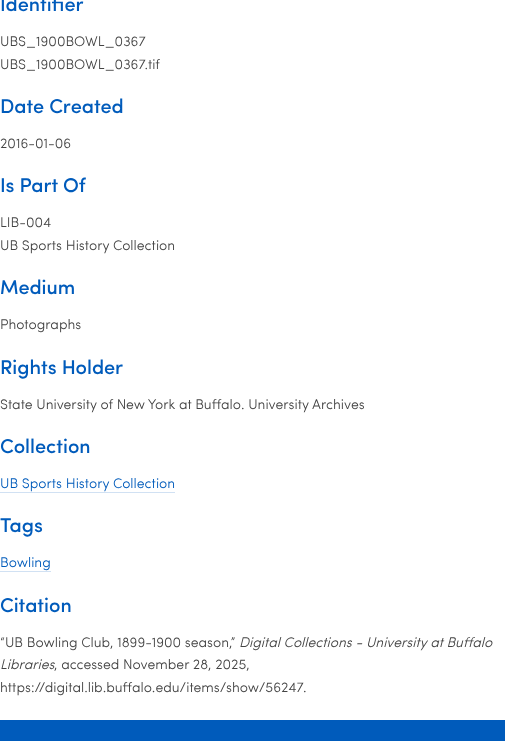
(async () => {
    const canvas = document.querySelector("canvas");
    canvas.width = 505;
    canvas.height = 741;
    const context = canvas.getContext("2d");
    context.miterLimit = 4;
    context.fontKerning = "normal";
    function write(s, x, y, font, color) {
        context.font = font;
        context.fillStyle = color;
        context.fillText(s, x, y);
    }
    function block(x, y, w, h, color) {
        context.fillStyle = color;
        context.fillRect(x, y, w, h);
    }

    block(0, 0, 505, 741, "rgb(0, 91, 187)");
    block(0, 0, 505, 720, "rgb(255, 255, 255)");
    write("Identifier", 0, 11, "500 20px Sofia", "rgb(0, 91, 187)");
    write("UBS_1900BOWL_0367", 0, 46, "300 14px Sofia", "rgb(68, 68, 68)");
    write("UBS_1900BOWL_0367.tif", 0, 69, "300 14px Sofia", "rgb(68, 68, 68)");
    write("Date Created", 0, 113, "500 20px Sofia", "rgb(0, 91, 187)");
    write("2016-01-06", 0, 148, "300 14px Sofia", "rgb(68, 68, 68)");
    write("Is Part Of", 0, 192, "500 20px Sofia", "rgb(0, 91, 187)");
    write("LIB-004", 0, 227, "300 14px Sofia", "rgb(68, 68, 68)");
    write("UB Sports History Collection", 0, 250, "300 14px Sofia", "rgb(68, 68, 68)");
    write("Medium", 0, 294, "500 20px Sofia", "rgb(0, 91, 187)");
    write("Photographs", 0, 329, "300 14px Sofia", "rgb(68, 68, 68)");
    write("Rights Holder", 0, 374, "500 20px Sofia", "rgb(0, 91, 187)");
    write("State University of New York at Buffalo. University Archives", 0, 409, "300 14px Sofia", "rgb(68, 68, 68)");
    write("Collection", 0, 453, "500 20px Sofia", "rgb(0, 91, 187)");
    write("UB Sports History Collection", 0, 488, "300 14px Sofia", "rgb(0, 91, 187)");
    block(0, 492, 175, 1, "rgb(209, 225, 243)");
    write("Tags", 0, 532, "500 20px Sofia", "rgb(0, 91, 187)");
    write("Bowling", 0, 567, "300 14px Sofia", "rgb(0, 91, 187)");
    block(0, 571, 51, 1, "rgb(209, 225, 243)");
    write("Citation", 0, 612, "500 20px Sofia", "rgb(0, 91, 187)");
    write("“UB Bowling Club, 1899-1900 season,”", 0, 647, "300 14px Sofia", "rgb(68, 68, 68)");
    write("Digital Collections - University at Buffalo", 239, 647, "italic 300 14px Sofia", "rgb(68, 68, 68)");
    write("Libraries", 0, 669, "italic 300 14px Sofia", "rgb(68, 68, 68)");
    write(", accessed November 28, 2025,", 54, 669, "300 14px Sofia", "rgb(68, 68, 68)");
    write("https://digital.lib.buffalo.edu/items/show/56247", 0, 692, "300 14px Sofia", "rgb(68, 68, 68)");
    write(".", 303, 692, "300 14px Sofia", "rgb(68, 68, 68)");
})();
